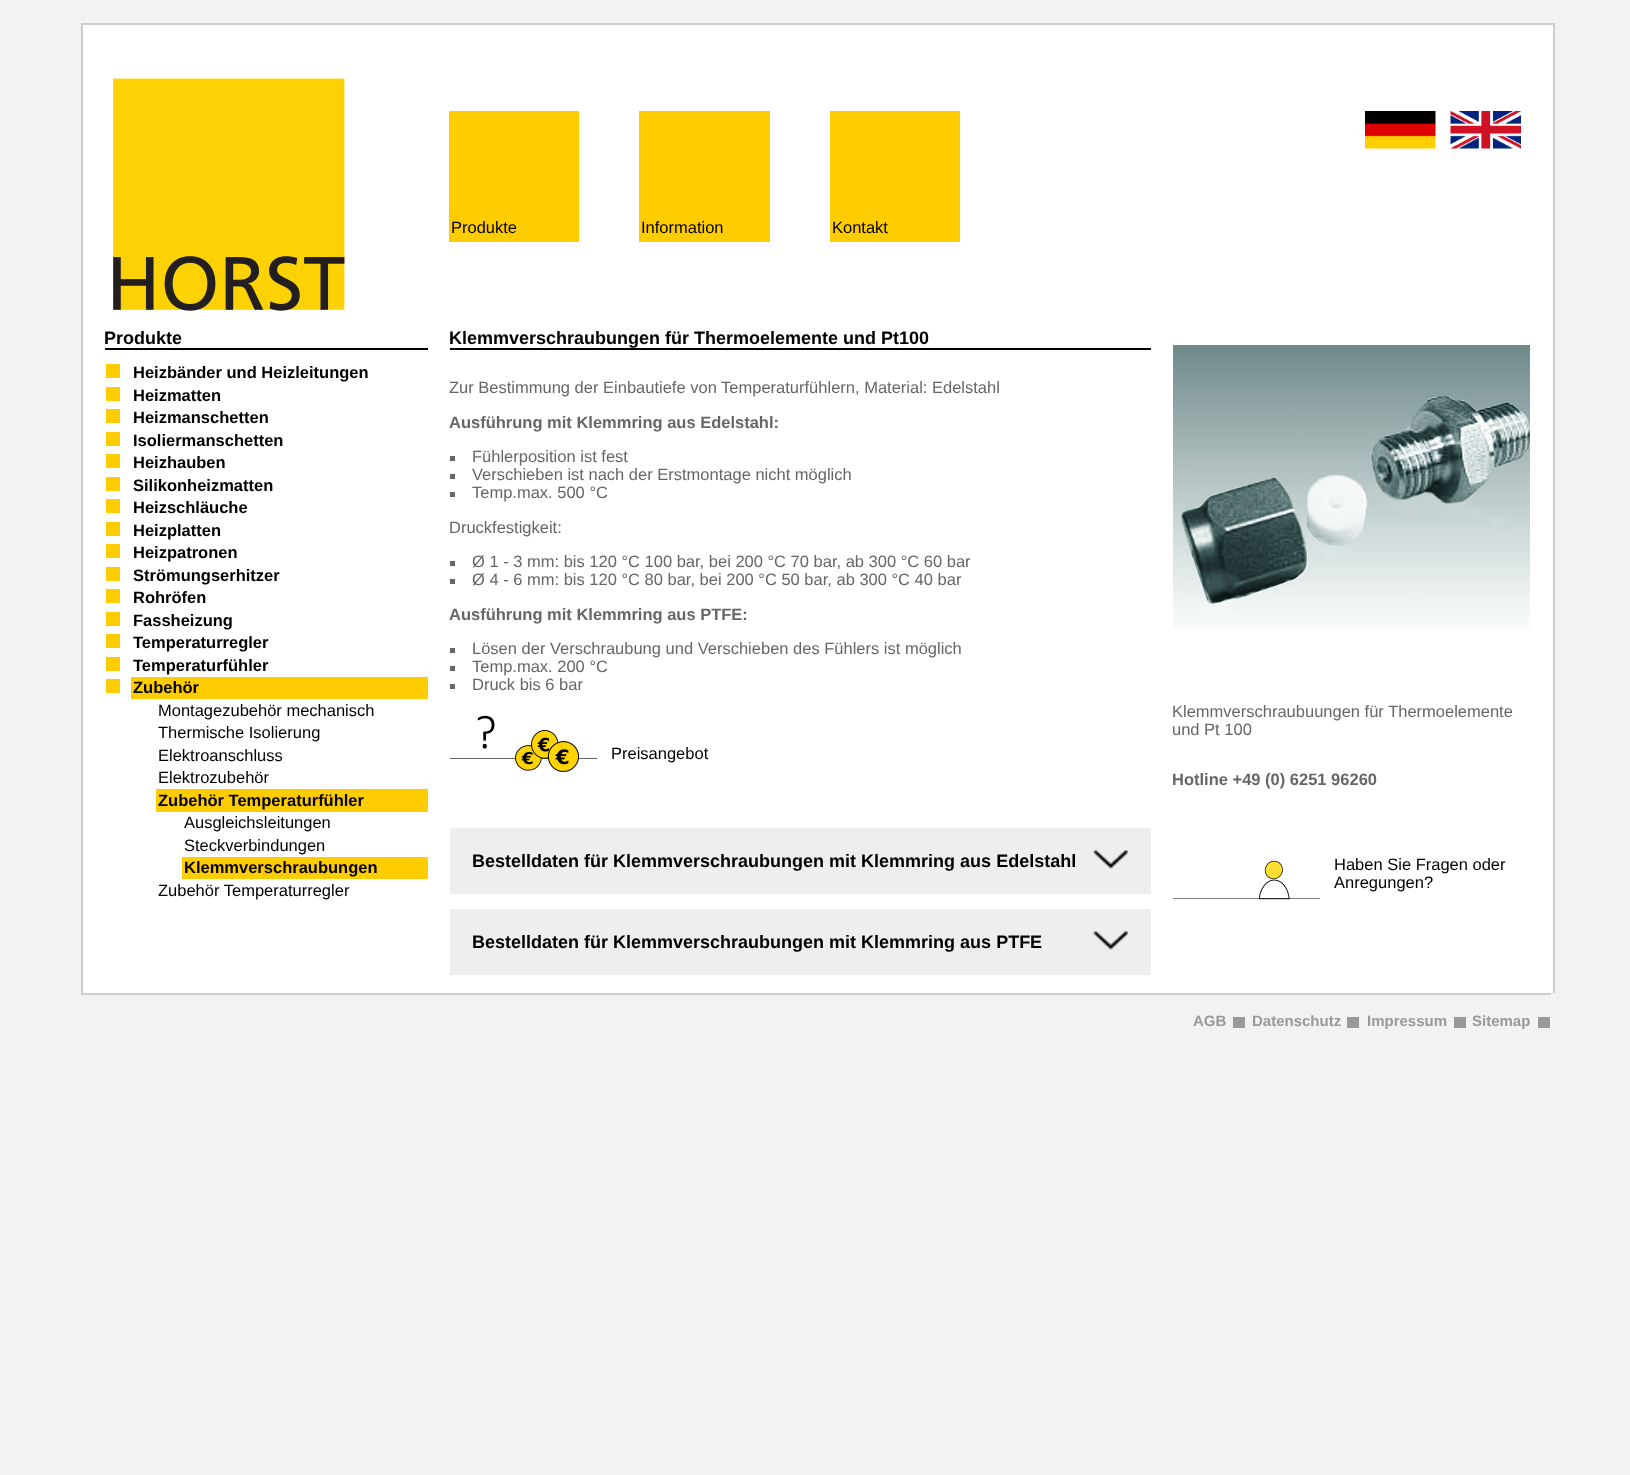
(async () => {
    const canvas = document.querySelector("canvas");
    canvas.width = 1630;
    canvas.height = 1475;
    const context = canvas.getContext("2d");
    context.miterLimit = 4;
    context.fontKerning = "normal";
    function write(s, x, y, font, color) {
        context.font = font;
        context.fillStyle = color;
        context.fillText(s, x, y);
    }
    function block(x, y, w, h, color) {
        context.fillStyle = color;
        context.fillRect(x, y, w, h);
    }
    async function photo(src, x, y, w, h) {
        const img = new Image();
        img.src = src;
        await img.decode();
        context.drawImage(img, x, y, w, h);
    }

    block(0, 0, 1630, 1475, "rgb(242, 242, 242)");
    block(83, 25, 1470, 968, "rgb(255, 255, 255)");
    block(81, 23, 1473, 2, "rgb(204, 204, 204)");
    block(1553, 23, 2, 970, "rgb(204, 204, 204)");
    block(81, 23, 2, 970, "rgb(204, 204, 204)");
    await photo("media/1.png", 113, 78, 232, 233);
    await photo("media/2.png", 1365, 111, 71, 38);
    await photo("media/3.png", 1450, 111, 71, 38);
    block(449, 111, 130, 131, "rgb(255, 204, 0)");
    write("Produkte", 451, 233, "16.5px Liberation Sans", "rgb(0, 0, 0)");
    block(639, 111, 131, 131, "rgb(255, 204, 0)");
    write("Information", 641, 233, "16.5px Liberation Sans", "rgb(0, 0, 0)");
    block(830, 111, 130, 131, "rgb(255, 204, 0)");
    write("Kontakt", 832, 233, "16.5px Liberation Sans", "rgb(0, 0, 0)");
    block(105, 348, 323, 2, "rgb(0, 0, 0)");
    write("Produkte", 104, 344, "bold 18px Liberation Sans", "rgb(0, 0, 0)");
    block(106, 364, 14, 14, "rgb(255, 204, 0)");
    write("Heizbänder und Heizleitungen", 133, 378, "bold 16.5px Liberation Sans", "rgb(0, 0, 0)");
    block(106, 387, 14, 14, "rgb(255, 204, 0)");
    write("Heizmatten", 133, 401, "bold 16.5px Liberation Sans", "rgb(0, 0, 0)");
    block(106, 409, 14, 14, "rgb(255, 204, 0)");
    write("Heizmanschetten", 133, 423, "bold 16.5px Liberation Sans", "rgb(0, 0, 0)");
    block(106, 432, 14, 14, "rgb(255, 204, 0)");
    write("Isoliermanschetten", 133, 446, "bold 16.5px Liberation Sans", "rgb(0, 0, 0)");
    block(106, 454, 14, 14, "rgb(255, 204, 0)");
    write("Heizhauben", 133, 468, "bold 16.5px Liberation Sans", "rgb(0, 0, 0)");
    block(106, 477, 14, 14, "rgb(255, 204, 0)");
    write("Silikonheizmatten", 133, 491, "bold 16.5px Liberation Sans", "rgb(0, 0, 0)");
    block(106, 499, 14, 14, "rgb(255, 204, 0)");
    write("Heizschläuche", 133, 513, "bold 16.5px Liberation Sans", "rgb(0, 0, 0)");
    block(106, 522, 14, 14, "rgb(255, 204, 0)");
    write("Heizplatten", 133, 536, "bold 16.5px Liberation Sans", "rgb(0, 0, 0)");
    block(106, 544, 14, 14, "rgb(255, 204, 0)");
    write("Heizpatronen", 133, 558, "bold 16.5px Liberation Sans", "rgb(0, 0, 0)");
    block(106, 567, 14, 14, "rgb(255, 204, 0)");
    write("Strömungserhitzer", 133, 581, "bold 16.5px Liberation Sans", "rgb(0, 0, 0)");
    block(106, 589, 14, 14, "rgb(255, 204, 0)");
    write("Rohröfen", 133, 603, "bold 16.5px Liberation Sans", "rgb(0, 0, 0)");
    block(106, 612, 14, 14, "rgb(255, 204, 0)");
    write("Fassheizung", 133, 626, "bold 16.5px Liberation Sans", "rgb(0, 0, 0)");
    block(106, 634, 14, 14, "rgb(255, 204, 0)");
    write("Temperaturregler", 133, 648, "bold 16.5px Liberation Sans", "rgb(0, 0, 0)");
    block(106, 657, 14, 14, "rgb(255, 204, 0)");
    write("Temperaturfühler", 133, 671, "bold 16.5px Liberation Sans", "rgb(0, 0, 0)");
    block(106, 679, 14, 14, "rgb(255, 204, 0)");
    block(131, 677, 297, 22, "rgb(255, 204, 0)");
    write("Zubehör", 133, 693, "bold 16.5px Liberation Sans", "rgb(0, 0, 0)");
    write("Montagezubehör mechanisch", 158, 716, "16.5px Liberation Sans", "rgb(0, 0, 0)");
    write("Thermische Isolierung", 158, 738, "16.5px Liberation Sans", "rgb(0, 0, 0)");
    write("Elektroanschluss", 158, 761, "16.5px Liberation Sans", "rgb(0, 0, 0)");
    write("Elektrozubehör", 158, 783, "16.5px Liberation Sans", "rgb(0, 0, 0)");
    block(156, 789, 272, 23, "rgb(255, 204, 0)");
    write("Zubehör Temperaturfühler", 158, 806, "bold 16.5px Liberation Sans", "rgb(0, 0, 0)");
    write("Ausgleichsleitungen", 184, 828, "16.5px Liberation Sans", "rgb(0, 0, 0)");
    write("Steckverbindungen", 184, 851, "16.5px Liberation Sans", "rgb(0, 0, 0)");
    block(182, 857, 246, 22, "rgb(255, 204, 0)");
    write("Klemmverschraubungen", 184, 873, "bold 16.5px Liberation Sans", "rgb(0, 0, 0)");
    write("Zubehör Temperaturregler", 158, 896, "16.5px Liberation Sans", "rgb(0, 0, 0)");
    block(450, 348, 701, 2, "rgb(0, 0, 0)");
    write("Klemmverschraubungen für Thermoelemente und Pt100", 449, 344, "bold 18px Liberation Sans", "rgb(0, 0, 0)");
    write("Zur Bestimmung der Einbautiefe von Temperaturfühlern, Material: Edelstahl", 449, 393, "16.5px Liberation Sans", "rgb(102, 102, 102)");
    write("Ausführung mit Klemmring aus Edelstahl:", 449, 428, "bold 16.5px Liberation Sans", "rgb(102, 102, 102)");
    block(450, 456, 5, 5, "rgb(102, 102, 102)");
    write("Fühlerposition ist fest", 472, 462, "16.5px Liberation Sans", "rgb(102, 102, 102)");
    block(450, 474, 5, 5, "rgb(102, 102, 102)");
    write("Verschieben ist nach der Erstmontage nicht möglich", 472, 480, "16.5px Liberation Sans", "rgb(102, 102, 102)");
    block(450, 492, 5, 5, "rgb(102, 102, 102)");
    write("Temp.max. 500 °C", 472, 498, "16.5px Liberation Sans", "rgb(102, 102, 102)");
    write("Druckfestigkeit:", 449, 533, "16.5px Liberation Sans", "rgb(102, 102, 102)");
    block(450, 561, 5, 5, "rgb(102, 102, 102)");
    write("Ø 1 - 3 mm: bis 120 °C 100 bar, bei 200 °C 70 bar, ab 300 °C 60 bar", 472, 567, "16.5px Liberation Sans", "rgb(102, 102, 102)");
    block(450, 579, 5, 5, "rgb(102, 102, 102)");
    write("Ø 4 - 6 mm: bis 120 °C 80 bar, bei 200 °C 50 bar, ab 300 °C 40 bar", 472, 585, "16.5px Liberation Sans", "rgb(102, 102, 102)");
    write("Ausführung mit Klemmring aus PTFE:", 449, 620, "bold 16.5px Liberation Sans", "rgb(102, 102, 102)");
    block(450, 648, 5, 5, "rgb(102, 102, 102)");
    write("Lösen der Verschraubung und Verschieben des Fühlers ist möglich", 472, 654, "16.5px Liberation Sans", "rgb(102, 102, 102)");
    block(450, 666, 5, 5, "rgb(102, 102, 102)");
    write("Temp.max. 200 °C", 472, 672, "16.5px Liberation Sans", "rgb(102, 102, 102)");
    block(450, 684, 5, 5, "rgb(102, 102, 102)");
    write("Druck bis 6 bar", 472, 690, "16.5px Liberation Sans", "rgb(102, 102, 102)");
    await photo("media/4.png", 450, 715, 147, 57);
    write("Preisangebot", 611, 759, "16.5px Liberation Sans", "rgb(0, 0, 0)");
    block(450, 828, 701, 66, "rgb(238, 238, 238)");
    write("Bestelldaten für Klemmverschraubungen mit Klemmring aus Edelstahl", 472, 867, "bold 18px Liberation Sans", "rgb(0, 0, 0)");
    await photo("media/5.png", 1093, 850, 35, 19);
    block(450, 909, 701, 66, "rgb(238, 238, 238)");
    write("Bestelldaten für Klemmverschraubungen mit Klemmring aus PTFE", 472, 948, "bold 18px Liberation Sans", "rgb(0, 0, 0)");
    await photo("media/5.png", 1093, 931, 35, 19);
    await photo("media/6.png", 1173, 345, 357, 284);
    write("Klemmverschraubuungen für Thermoelemente", 1172, 717, "16.5px Liberation Sans", "rgb(102, 102, 102)");
    write("und Pt 100", 1172, 735, "16.5px Liberation Sans", "rgb(102, 102, 102)");
    write("Hotline +49 (0) 6251 96260", 1172, 785, "bold 16.5px Liberation Sans", "rgb(102, 102, 102)");
    await photo("media/7.png", 1173, 860, 147, 40);
    write("Haben Sie Fragen oder", 1334, 870, "16.5px Liberation Sans", "rgb(0, 0, 0)");
    write("Anregungen?", 1334, 888, "16.5px Liberation Sans", "rgb(0, 0, 0)");
    block(81, 993, 1470, 2, "rgb(204, 204, 204)");
    write("AGB", 1193, 1026, "bold 15px Liberation Sans", "rgb(153, 153, 153)");
    block(1233, 1017, 12, 11, "rgb(153, 153, 153)");
    write("Datenschutz", 1252, 1026, "bold 15px Liberation Sans", "rgb(153, 153, 153)");
    block(1347, 1017, 12, 11, "rgb(153, 153, 153)");
    write("Impressum", 1367, 1026, "bold 15px Liberation Sans", "rgb(153, 153, 153)");
    block(1454, 1017, 12, 11, "rgb(153, 153, 153)");
    write("Sitemap", 1472, 1026, "bold 15px Liberation Sans", "rgb(153, 153, 153)");
    block(1538, 1017, 12, 11, "rgb(153, 153, 153)");
})();
